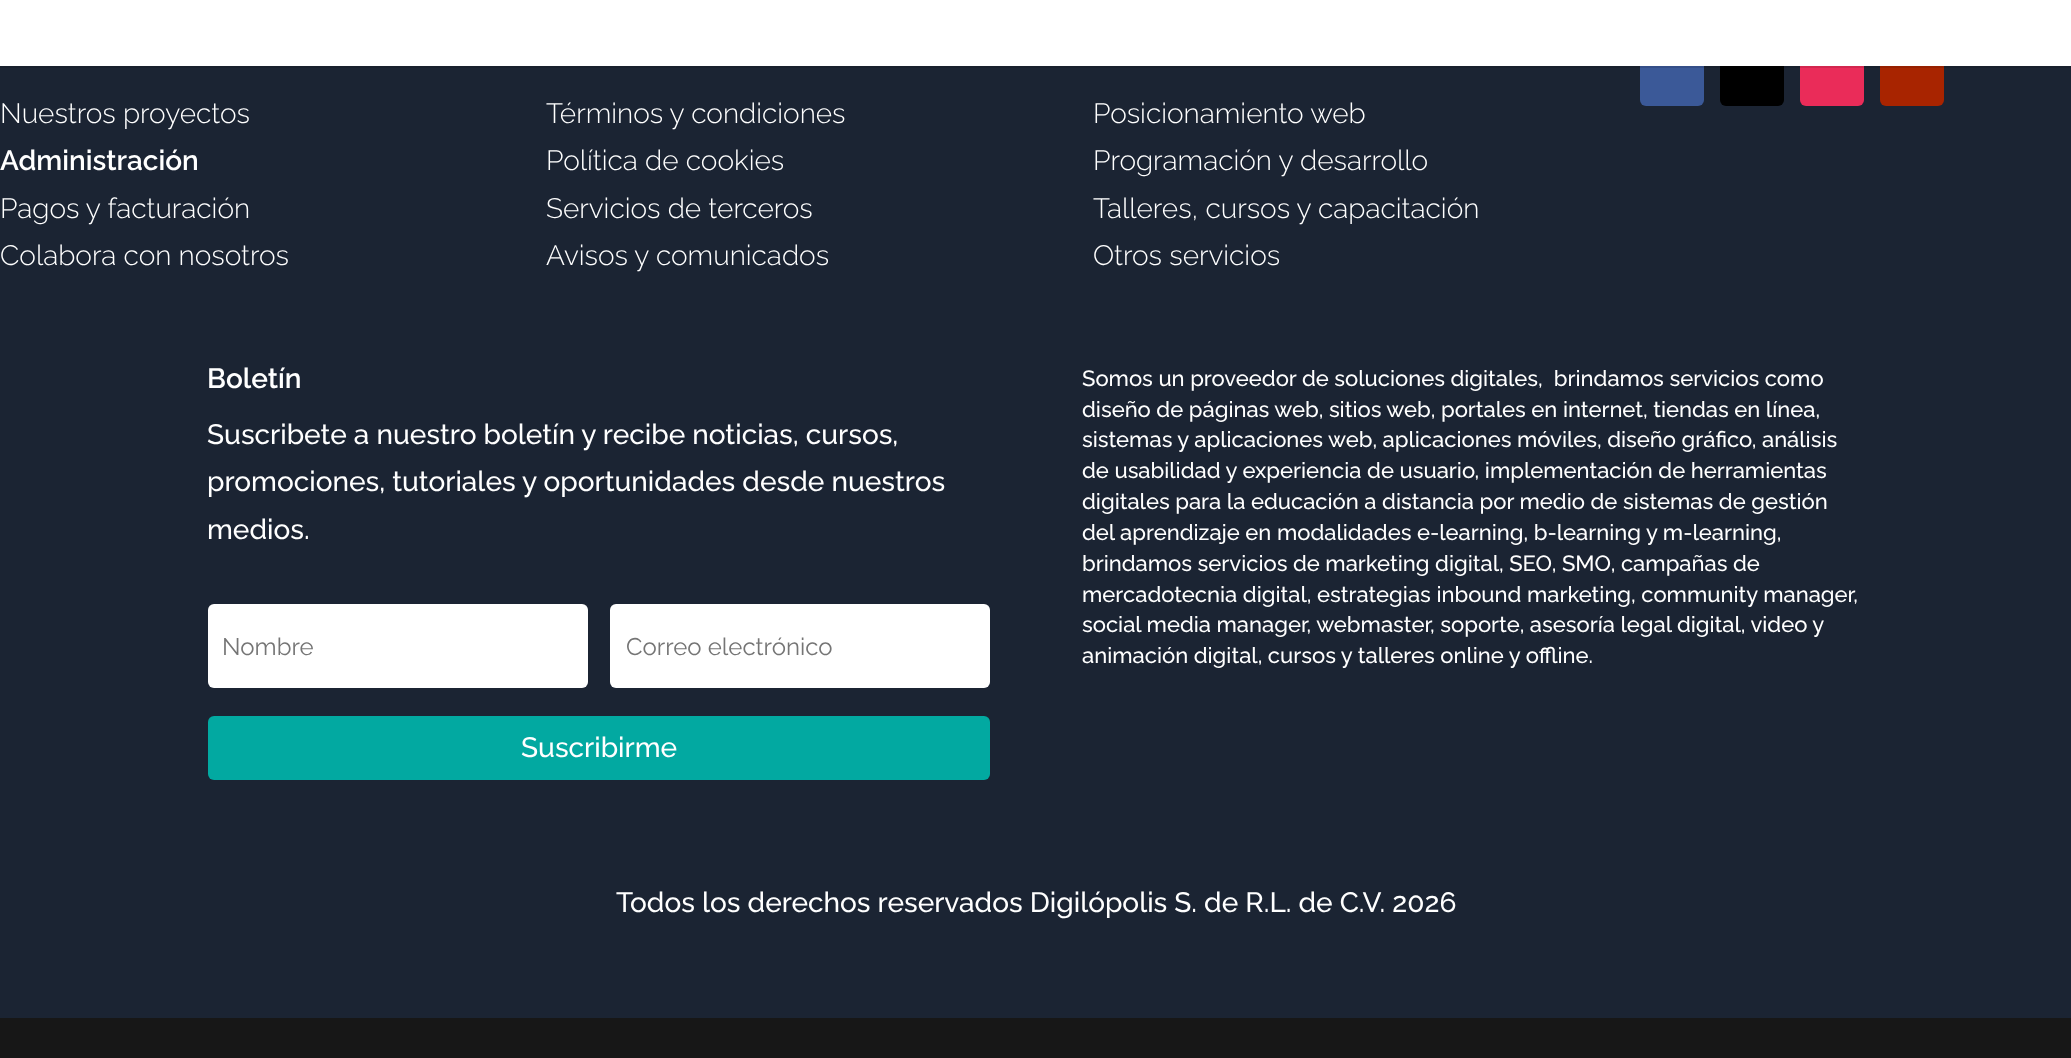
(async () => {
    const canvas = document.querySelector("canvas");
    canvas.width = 2071;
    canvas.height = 1058;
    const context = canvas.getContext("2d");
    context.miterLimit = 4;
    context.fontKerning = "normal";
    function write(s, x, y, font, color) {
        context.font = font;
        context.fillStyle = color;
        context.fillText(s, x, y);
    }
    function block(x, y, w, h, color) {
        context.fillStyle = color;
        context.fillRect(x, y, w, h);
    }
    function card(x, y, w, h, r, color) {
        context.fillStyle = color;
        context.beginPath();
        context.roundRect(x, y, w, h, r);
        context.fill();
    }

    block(0, 0, 2071, 1058, "rgb(23, 23, 23)");
    block(0, 66, 2071, 952, "rgb(27, 36, 51)");
    card(1640, 42, 64, 64, 6, "rgb(59, 89, 152)");
    card(1720, 42, 64, 64, 6, "rgb(0, 0, 0)");
    card(1800, 42, 64, 64, 6, "rgb(234, 44, 89)");
    card(1880, 42, 64, 64, 6, "rgb(168, 36, 0)");
    block(0, 66, 2071, 2, "rgba(0, 0, 0, 0.1)");
    block(0, 0, 2071, 66, "rgb(255, 255, 255)");
    write("Nuestros proyectos", 0, 123, "300 28px Raleway", "rgb(255, 255, 255)");
    write("Administración", 0, 170, "600 28px Raleway", "rgb(255, 255, 255)");
    write("Pagos y facturación", 0, 218, "300 28px Raleway", "rgb(255, 255, 255)");
    write("Colabora con nosotros", 0, 265, "300 28px Raleway", "rgb(255, 255, 255)");
    write("Términos y condiciones", 546, 123, "300 28px Raleway", "rgb(255, 255, 255)");
    write("Política de cookies", 546, 170, "300 28px Raleway", "rgb(255, 255, 255)");
    write("Servicios de terceros", 546, 218, "300 28px Raleway", "rgb(255, 255, 255)");
    write("Avisos y comunicados", 546, 265, "300 28px Raleway", "rgb(255, 255, 255)");
    write("Posicionamiento web", 1093, 123, "300 28px Raleway", "rgb(255, 255, 255)");
    write("Programación y desarrollo", 1093, 170, "300 28px Raleway", "rgb(255, 255, 255)");
    write("Talleres, cursos y capacitación", 1093, 218, "300 28px Raleway", "rgb(255, 255, 255)");
    write("Otros servicios", 1093, 265, "300 28px Raleway", "rgb(255, 255, 255)");
    write("Boletín", 207, 388, "600 28px Raleway", "rgb(255, 255, 255)");
    write("Suscribete a nuestro boletín y recibe noticias, cursos,", 207, 444, "500 28px Raleway", "rgb(255, 255, 255)");
    write("promociones, tutoriales y oportunidades desde nuestros", 207, 491, "500 28px Raleway", "rgb(255, 255, 255)");
    write("medios.", 207, 539, "500 28px Raleway", "rgb(255, 255, 255)");
    card(208, 604, 380, 84, 6, "rgb(255, 255, 255)");
    write("Nombre", 222, 655, "100 24px Raleway", "rgb(117, 117, 117)");
    card(610, 604, 380, 84, 6, "rgb(255, 255, 255)");
    write("Correo electrónico", 626, 655, "100 24px Raleway", "rgb(117, 117, 117)");
    card(208, 716, 782, 64, 6, "rgb(2, 169, 161)");
    write("Suscribirme", 521, 757, "500 28px Raleway", "rgb(255, 255, 255)");
    write("Somos un proveedor de soluciones digitales,  brindamos servicios como", 1082, 386, "500 22px Raleway", "rgb(255, 255, 255)");
    write("diseño de páginas web, sitios web, portales en internet, tiendas en línea,", 1082, 417, "500 22px Raleway", "rgb(255, 255, 255)");
    write("sistemas y aplicaciones web, aplicaciones móviles, diseño gráfico, análisis", 1082, 447, "500 22px Raleway", "rgb(255, 255, 255)");
    write("de usabilidad y experiencia de usuario, implementación de herramientas", 1082, 478, "500 22px Raleway", "rgb(255, 255, 255)");
    write("digitales para la educación a distancia por medio de sistemas de gestión", 1082, 509, "500 22px Raleway", "rgb(255, 255, 255)");
    write("del aprendizaje en modalidades e-learning, b-learning y m-learning,", 1082, 540, "500 22px Raleway", "rgb(255, 255, 255)");
    write("brindamos servicios de marketing digital, SEO, SMO, campañas de", 1082, 571, "500 22px Raleway", "rgb(255, 255, 255)");
    write("mercadotecnia digital, estrategias inbound marketing, community manager,", 1082, 602, "500 22px Raleway", "rgb(255, 255, 255)");
    write("social media manager, webmaster, soporte, asesoría legal digital, video y", 1082, 632, "500 22px Raleway", "rgb(255, 255, 255)");
    write("animación digital, cursos y talleres online y offline.", 1082, 663, "500 22px Raleway", "rgb(255, 255, 255)");
    write("Todos los derechos reservados Digilópolis S. de R.L. de C.V. 2026", 616, 912, "500 28px Raleway", "rgb(255, 255, 255)");
})();
